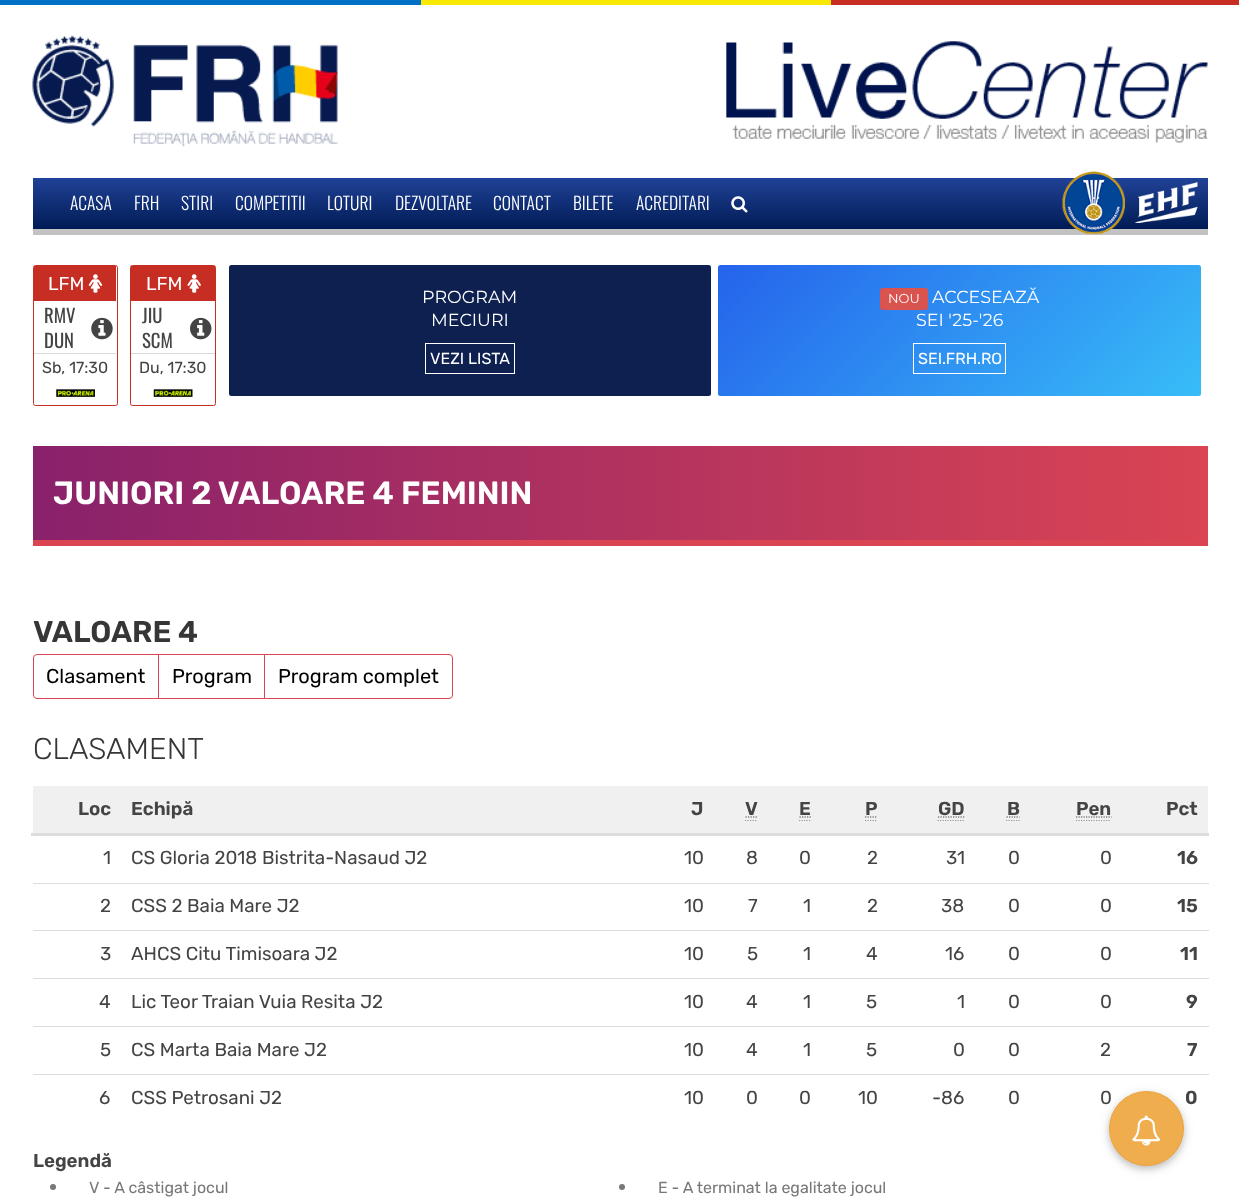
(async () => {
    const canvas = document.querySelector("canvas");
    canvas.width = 1239;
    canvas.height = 1203;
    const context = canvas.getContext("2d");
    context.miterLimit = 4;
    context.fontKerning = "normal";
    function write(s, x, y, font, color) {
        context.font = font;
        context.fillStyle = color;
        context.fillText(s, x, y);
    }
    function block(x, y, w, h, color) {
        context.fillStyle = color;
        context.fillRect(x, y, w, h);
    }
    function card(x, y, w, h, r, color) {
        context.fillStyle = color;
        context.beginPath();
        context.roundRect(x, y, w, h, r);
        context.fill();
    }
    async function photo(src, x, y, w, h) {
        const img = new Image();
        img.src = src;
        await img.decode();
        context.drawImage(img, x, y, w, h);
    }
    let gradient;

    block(0, 0, 1239, 1203, "rgb(255, 255, 255)");
    block(0, 0, 421, 5, "rgb(0, 113, 197)");
    block(421, 0, 410, 5, "rgb(249, 232, 0)");
    block(831, 0, 408, 5, "rgb(198, 45, 35)");
    await photo("media/1.png", 32, 35, 306, 112);
    await photo("media/2.png", 726, 41, 482, 102);
    gradient = context.createLinearGradient(620, 177, 620, 229);
    gradient.addColorStop(0, "rgb(33, 67, 153)");
    gradient.addColorStop(1, "rgb(0, 27, 84)");
    context.fillStyle = gradient;
    context.fillRect(33, 178, 1175, 51);
    block(33, 229, 1175, 6, "rgb(194, 194, 194)");
    write("ACASA", 70, 210, "300 17.5px Oswald", "rgb(255, 255, 255)");
    write("FRH", 134, 210, "300 17.5px Oswald", "rgb(255, 255, 255)");
    write("STIRI", 181, 210, "300 17.5px Oswald", "rgb(255, 255, 255)");
    write("COMPETITII", 235, 210, "300 17.5px Oswald", "rgb(255, 255, 255)");
    write("LOTURI", 327, 210, "300 17.5px Oswald", "rgb(255, 255, 255)");
    write("DEZVOLTARE", 395, 210, "300 17.5px Oswald", "rgb(255, 255, 255)");
    write("CONTACT", 493, 210, "300 17.5px Oswald", "rgb(255, 255, 255)");
    write("BILETE", 573, 210, "300 17.5px Oswald", "rgb(255, 255, 255)");
    write("ACREDITARI", 636, 210, "300 17.5px Oswald", "rgb(255, 255, 255)");
    await photo("media/3.png", 731, 196, 17, 17);
    await photo("media/4.png", 1062, 171, 63, 63);
    await photo("media/5.png", 1135, 182, 63, 41);
    context.beginPath();
    context.roundRect(33.5, 265.5, 84, 140, 2);
    context.strokeStyle = "rgb(198, 45, 35)";
    context.stroke();
    block(34, 266, 82, 35, "rgb(198, 45, 35)");
    write("LFM", 48, 290, "18.75px Rubik", "rgb(255, 255, 255)");
    await photo("media/6.png", 88, 274, 15, 19);
    write("RMV", 44, 323, "18.75px Oswald", "rgb(68, 68, 68)");
    write("DUN", 44, 348, "18.75px Oswald", "rgb(68, 68, 68)");
    await photo("media/7.png", 91, 317, 22, 23);
    block(34, 353, 82, 1, "rgb(217, 217, 217)");
    write("Sb, 17:30", 42, 373, "16px Rubik", "rgb(68, 68, 68)");
    await photo("media/8.png", 56, 389, 39, 8);
    context.beginPath();
    context.roundRect(130.5, 265.5, 85, 140, 2);
    context.stroke();
    block(131, 266, 84, 35, "rgb(198, 45, 35)");
    write("LFM", 146, 290, "18.75px Rubik", "rgb(255, 255, 255)");
    await photo("media/9.png", 187, 274, 14, 19);
    write("JIU", 142, 323, "18.75px Oswald", "rgb(68, 68, 68)");
    await photo("media/10.png", 190, 317, 22, 23);
    write("SCM", 142, 348, "18.75px Oswald", "rgb(68, 68, 68)");
    block(131, 353, 84, 1, "rgb(217, 217, 217)");
    write("Du, 17:30", 139, 373, "16px Rubik", "rgb(68, 68, 68)");
    await photo("media/11.png", 153, 389, 40, 8);
    card(229, 265, 482, 131, 2.5, "rgb(14, 32, 80)");
    write("PROGRAM", 422, 303, "17.5px Montserrat", "rgb(255, 255, 255)");
    write("MECIURI", 431, 326, "17.5px Montserrat", "rgb(255, 255, 255)");
    context.strokeStyle = "rgb(255, 255, 255)";
    context.strokeRect(425.5, 343.5, 89, 30);
    write("VEZI LISTA", 430, 364, "16px Rubik", "rgb(255, 255, 255)");
    gradient = context.createLinearGradient(806, 177, 1113, 484);
    gradient.addColorStop(0, "rgb(37, 99, 235)");
    gradient.addColorStop(1, "rgb(56, 189, 248)");
    context.fillStyle = gradient;
    context.beginPath();
    context.roundRect(718, 265, 483, 131, 2.5);
    context.fill();
    card(880, 288, 48, 22, 3, "rgb(217, 83, 79)");
    write("NOU", 888, 303, "13px Montserrat", "rgb(255, 255, 255)");
    write("ACCESEAZĂ", 932, 303, "17.5px Montserrat", "rgb(255, 255, 255)");
    write("SEI '25-'26", 916, 326, "17.5px Montserrat", "rgb(255, 255, 255)");
    context.strokeRect(913.5, 343.5, 92, 30);
    write("SEI.FRH.RO", 918, 364, "16px Rubik", "rgb(255, 255, 255)");
    gradient = context.createLinearGradient(33, 493, 1208, 493);
    gradient.addColorStop(0, "rgb(137, 33, 107)");
    gradient.addColorStop(1, "rgb(218, 68, 83)");
    context.fillStyle = gradient;
    context.fillRect(33, 446, 1175, 94);
    block(33, 540, 1175, 6, "rgb(218, 68, 83)");
    write("JUNIORI 2 VALOARE 4 FEMININ", 53, 504, "600 32px Rubik", "rgb(255, 255, 255)");
    write("VALOARE 4", 33, 642, "600 30px Rubik", "rgb(54, 54, 54)");
    context.beginPath();
    context.roundRect(33.5, 654.5, 125, 44, [3.5, 0, 0, 3.5]);
    context.strokeStyle = "rgb(218, 68, 83)";
    context.stroke();
    write("Clasament", 46, 683, "20px Rubik", "rgb(0, 0, 0)");
    context.strokeRect(158.5, 654.5, 106, 44);
    write("Program", 172, 683, "20px Rubik", "rgb(0, 0, 0)");
    context.fillStyle = "rgb(255, 255, 255)";
    context.beginPath();
    context.roundRect(264.5, 654.5, 188, 44, [0, 3.5, 3.5, 0]);
    context.fill();
    context.stroke();
    write("Program complet", 278, 683, "20px Rubik", "rgb(0, 0, 0)");
    write("CLASAMENT", 33, 759, "300 30px Rubik", "rgb(54, 54, 54)");
    block(33, 786, 1175, 47, "rgb(240, 240, 240)");
    write("Loc", 78, 815, "600 18.75px Rubik", "rgb(68, 68, 68)");
    write("Echipă", 131, 815, "600 18.75px Rubik", "rgb(68, 68, 68)");
    write("J", 691, 815, "600 18.75px Rubik", "rgb(68, 68, 68)");
    write("V", 745, 815, "600 18.75px Rubik", "rgb(68, 68, 68)");
    context.beginPath();
    context.moveTo(745, 820.5);
    context.lineTo(757.5, 820.5);
    context.strokeStyle = "rgb(153, 153, 153)";
    context.lineWidth = 1.2;
    context.setLineDash([1.25, 1.25]);
    context.stroke();
    context.beginPath();
    context.moveTo(745.5, 817);
    context.lineTo(758, 817);
    context.strokeStyle = "rgb(68, 68, 68)";
    context.stroke();
    write("E", 799, 815, "600 18.75px Rubik", "rgb(68, 68, 68)");
    context.beginPath();
    context.moveTo(799, 820.5);
    context.lineTo(811, 820.5);
    context.strokeStyle = "rgb(153, 153, 153)";
    context.stroke();
    context.beginPath();
    context.moveTo(799.5, 817);
    context.lineTo(811, 817);
    context.strokeStyle = "rgb(68, 68, 68)";
    context.stroke();
    write("P", 865, 815, "600 18.75px Rubik", "rgb(68, 68, 68)");
    context.beginPath();
    context.moveTo(865, 820.5);
    context.lineTo(877.5, 820.5);
    context.strokeStyle = "rgb(153, 153, 153)";
    context.stroke();
    context.beginPath();
    context.moveTo(865, 817);
    context.lineTo(877.5, 817);
    context.strokeStyle = "rgb(68, 68, 68)";
    context.stroke();
    write("GD", 938, 815, "600 18.75px Rubik", "rgb(68, 68, 68)");
    context.beginPath();
    context.moveTo(937.5, 820.5);
    context.lineTo(965, 820.5);
    context.strokeStyle = "rgb(153, 153, 153)";
    context.stroke();
    context.beginPath();
    context.moveTo(938, 817);
    context.lineTo(964.5, 817);
    context.strokeStyle = "rgb(68, 68, 68)";
    context.stroke();
    write("B", 1007, 815, "600 18.75px Rubik", "rgb(68, 68, 68)");
    context.beginPath();
    context.moveTo(1006, 820.5);
    context.lineTo(1020, 820.5);
    context.strokeStyle = "rgb(153, 153, 153)";
    context.stroke();
    context.beginPath();
    context.moveTo(1006.5, 817);
    context.lineTo(1019.5, 817);
    context.strokeStyle = "rgb(68, 68, 68)";
    context.stroke();
    write("Pen", 1076, 815, "600 18.75px Rubik", "rgb(68, 68, 68)");
    context.beginPath();
    context.moveTo(1076, 820.5);
    context.lineTo(1111, 820.5);
    context.strokeStyle = "rgb(153, 153, 153)";
    context.stroke();
    context.beginPath();
    context.moveTo(1076, 817);
    context.lineTo(1111.5, 817);
    context.strokeStyle = "rgb(68, 68, 68)";
    context.stroke();
    block(31, 833, 1178, 3, "rgb(221, 221, 221)");
    write("Pct", 1166, 815, "600 18.75px Rubik", "rgb(68, 68, 68)");
    write("1", 103, 864, "18.75px Rubik", "rgb(68, 68, 68)");
    write("CS Gloria 2018 Bistrita-Nasaud J2", 131, 864, "18.75px Rubik", "rgb(68, 68, 68)");
    write("10", 684, 864, "18.75px Rubik", "rgb(68, 68, 68)");
    write("8", 746, 864, "18.75px Rubik", "rgb(68, 68, 68)");
    write("0", 799, 864, "18.75px Rubik", "rgb(68, 68, 68)");
    write("2", 867, 864, "18.75px Rubik", "rgb(68, 68, 68)");
    write("31", 946, 864, "18.75px Rubik", "rgb(68, 68, 68)");
    write("0", 1008, 864, "18.75px Rubik", "rgb(68, 68, 68)");
    write("0", 1100, 864, "18.75px Rubik", "rgb(68, 68, 68)");
    write("16", 1177, 864, "600 18.75px Rubik", "rgb(68, 68, 68)");
    write("2", 100, 912, "18.75px Rubik", "rgb(68, 68, 68)");
    write("CSS 2 Baia Mare J2", 131, 912, "18.75px Rubik", "rgb(68, 68, 68)");
    write("10", 684, 912, "18.75px Rubik", "rgb(68, 68, 68)");
    write("7", 748, 912, "18.75px Rubik", "rgb(68, 68, 68)");
    write("1", 803, 912, "18.75px Rubik", "rgb(68, 68, 68)");
    write("2", 867, 912, "18.75px Rubik", "rgb(68, 68, 68)");
    write("38", 941, 912, "18.75px Rubik", "rgb(68, 68, 68)");
    write("0", 1008, 912, "18.75px Rubik", "rgb(68, 68, 68)");
    write("0", 1100, 912, "18.75px Rubik", "rgb(68, 68, 68)");
    block(33, 883, 1176, 1, "rgb(221, 221, 221)");
    write("15", 1177, 912, "600 18.75px Rubik", "rgb(68, 68, 68)");
    write("3", 100, 960, "18.75px Rubik", "rgb(68, 68, 68)");
    write("AHCS Citu Timisoara J2", 131, 960, "18.75px Rubik", "rgb(68, 68, 68)");
    write("10", 684, 960, "18.75px Rubik", "rgb(68, 68, 68)");
    write("5", 747, 960, "18.75px Rubik", "rgb(68, 68, 68)");
    write("1", 803, 960, "18.75px Rubik", "rgb(68, 68, 68)");
    write("4", 866, 960, "18.75px Rubik", "rgb(68, 68, 68)");
    write("16", 945, 960, "18.75px Rubik", "rgb(68, 68, 68)");
    write("0", 1008, 960, "18.75px Rubik", "rgb(68, 68, 68)");
    write("0", 1100, 960, "18.75px Rubik", "rgb(68, 68, 68)");
    block(33, 930, 1176, 1, "rgb(221, 221, 221)");
    write("11", 1180, 960, "600 18.75px Rubik", "rgb(68, 68, 68)");
    write("4", 99, 1008, "18.75px Rubik", "rgb(68, 68, 68)");
    write("Lic Teor Traian Vuia Resita J2", 131, 1008, "18.75px Rubik", "rgb(68, 68, 68)");
    write("10", 684, 1008, "18.75px Rubik", "rgb(68, 68, 68)");
    write("4", 746, 1008, "18.75px Rubik", "rgb(68, 68, 68)");
    write("1", 803, 1008, "18.75px Rubik", "rgb(68, 68, 68)");
    write("5", 866, 1008, "18.75px Rubik", "rgb(68, 68, 68)");
    write("1", 957, 1008, "18.75px Rubik", "rgb(68, 68, 68)");
    write("0", 1008, 1008, "18.75px Rubik", "rgb(68, 68, 68)");
    write("0", 1100, 1008, "18.75px Rubik", "rgb(68, 68, 68)");
    block(33, 978, 1176, 1, "rgb(221, 221, 221)");
    write("9", 1186, 1008, "600 18.75px Rubik", "rgb(68, 68, 68)");
    write("5", 100, 1056, "18.75px Rubik", "rgb(68, 68, 68)");
    write("CS Marta Baia Mare J2", 131, 1056, "18.75px Rubik", "rgb(68, 68, 68)");
    write("10", 684, 1056, "18.75px Rubik", "rgb(68, 68, 68)");
    write("4", 746, 1056, "18.75px Rubik", "rgb(68, 68, 68)");
    write("1", 803, 1056, "18.75px Rubik", "rgb(68, 68, 68)");
    write("5", 866, 1056, "18.75px Rubik", "rgb(68, 68, 68)");
    write("0", 953, 1056, "18.75px Rubik", "rgb(68, 68, 68)");
    write("0", 1008, 1056, "18.75px Rubik", "rgb(68, 68, 68)");
    write("2", 1100, 1056, "18.75px Rubik", "rgb(68, 68, 68)");
    block(33, 1026, 1176, 1, "rgb(221, 221, 221)");
    write("7", 1187, 1056, "600 18.75px Rubik", "rgb(68, 68, 68)");
    write("6", 99, 1104, "18.75px Rubik", "rgb(68, 68, 68)");
    write("CSS Petrosani J2", 131, 1104, "18.75px Rubik", "rgb(68, 68, 68)");
    write("10", 684, 1104, "18.75px Rubik", "rgb(68, 68, 68)");
    write("0", 746, 1104, "18.75px Rubik", "rgb(68, 68, 68)");
    write("0", 799, 1104, "18.75px Rubik", "rgb(68, 68, 68)");
    write("10", 858, 1104, "18.75px Rubik", "rgb(68, 68, 68)");
    write("-86", 932, 1104, "18.75px Rubik", "rgb(68, 68, 68)");
    write("0", 1008, 1104, "18.75px Rubik", "rgb(68, 68, 68)");
    write("0", 1100, 1104, "18.75px Rubik", "rgb(68, 68, 68)");
    block(33, 1074, 1176, 1, "rgb(221, 221, 221)");
    write("0", 1185, 1104, "600 18.75px Rubik", "rgb(68, 68, 68)");
    write("Legendă", 33, 1167, "600 18.75px Rubik", "rgb(68, 68, 68)");
    context.fillStyle = "rgb(120, 120, 120)";
    context.beginPath();
    context.arc(53, 1187, 3, 0, Math.PI * 2);
    context.fill();
    write("V - A câstigat jocul", 89, 1193, "16px Rubik", "rgb(120, 120, 120)");
    context.beginPath();
    context.arc(622, 1187, 3, 0, Math.PI * 2);
    context.fill();
    write("E - A terminat la egalitate jocul", 658, 1193, "16px Rubik", "rgb(120, 120, 120)");
    context.fillStyle = "rgba(0, 0, 0, 0.12)";
    context.filter = "blur(6px)";
    context.beginPath();
    context.roundRect(1109, 1094, 75, 75, 37.5);
    context.fill();
    context.filter = "none";
    context.fillStyle = "rgba(0, 0, 0, 0.16)";
    context.filter = "blur(3px)";
    context.beginPath();
    context.roundRect(1109, 1094, 75, 75, 37.5);
    context.fill();
    context.filter = "none";
    context.fillStyle = "rgb(240, 173, 78)";
    context.beginPath();
    context.arc(1146.5, 1128.5, 37, 0, Math.PI * 2);
    context.fill();
    context.strokeStyle = "rgb(238, 162, 54)";
    context.lineWidth = 1;
    context.setLineDash([]);
    context.stroke();
    await photo("media/12.png", 1132, 1115, 29, 31);
})();
